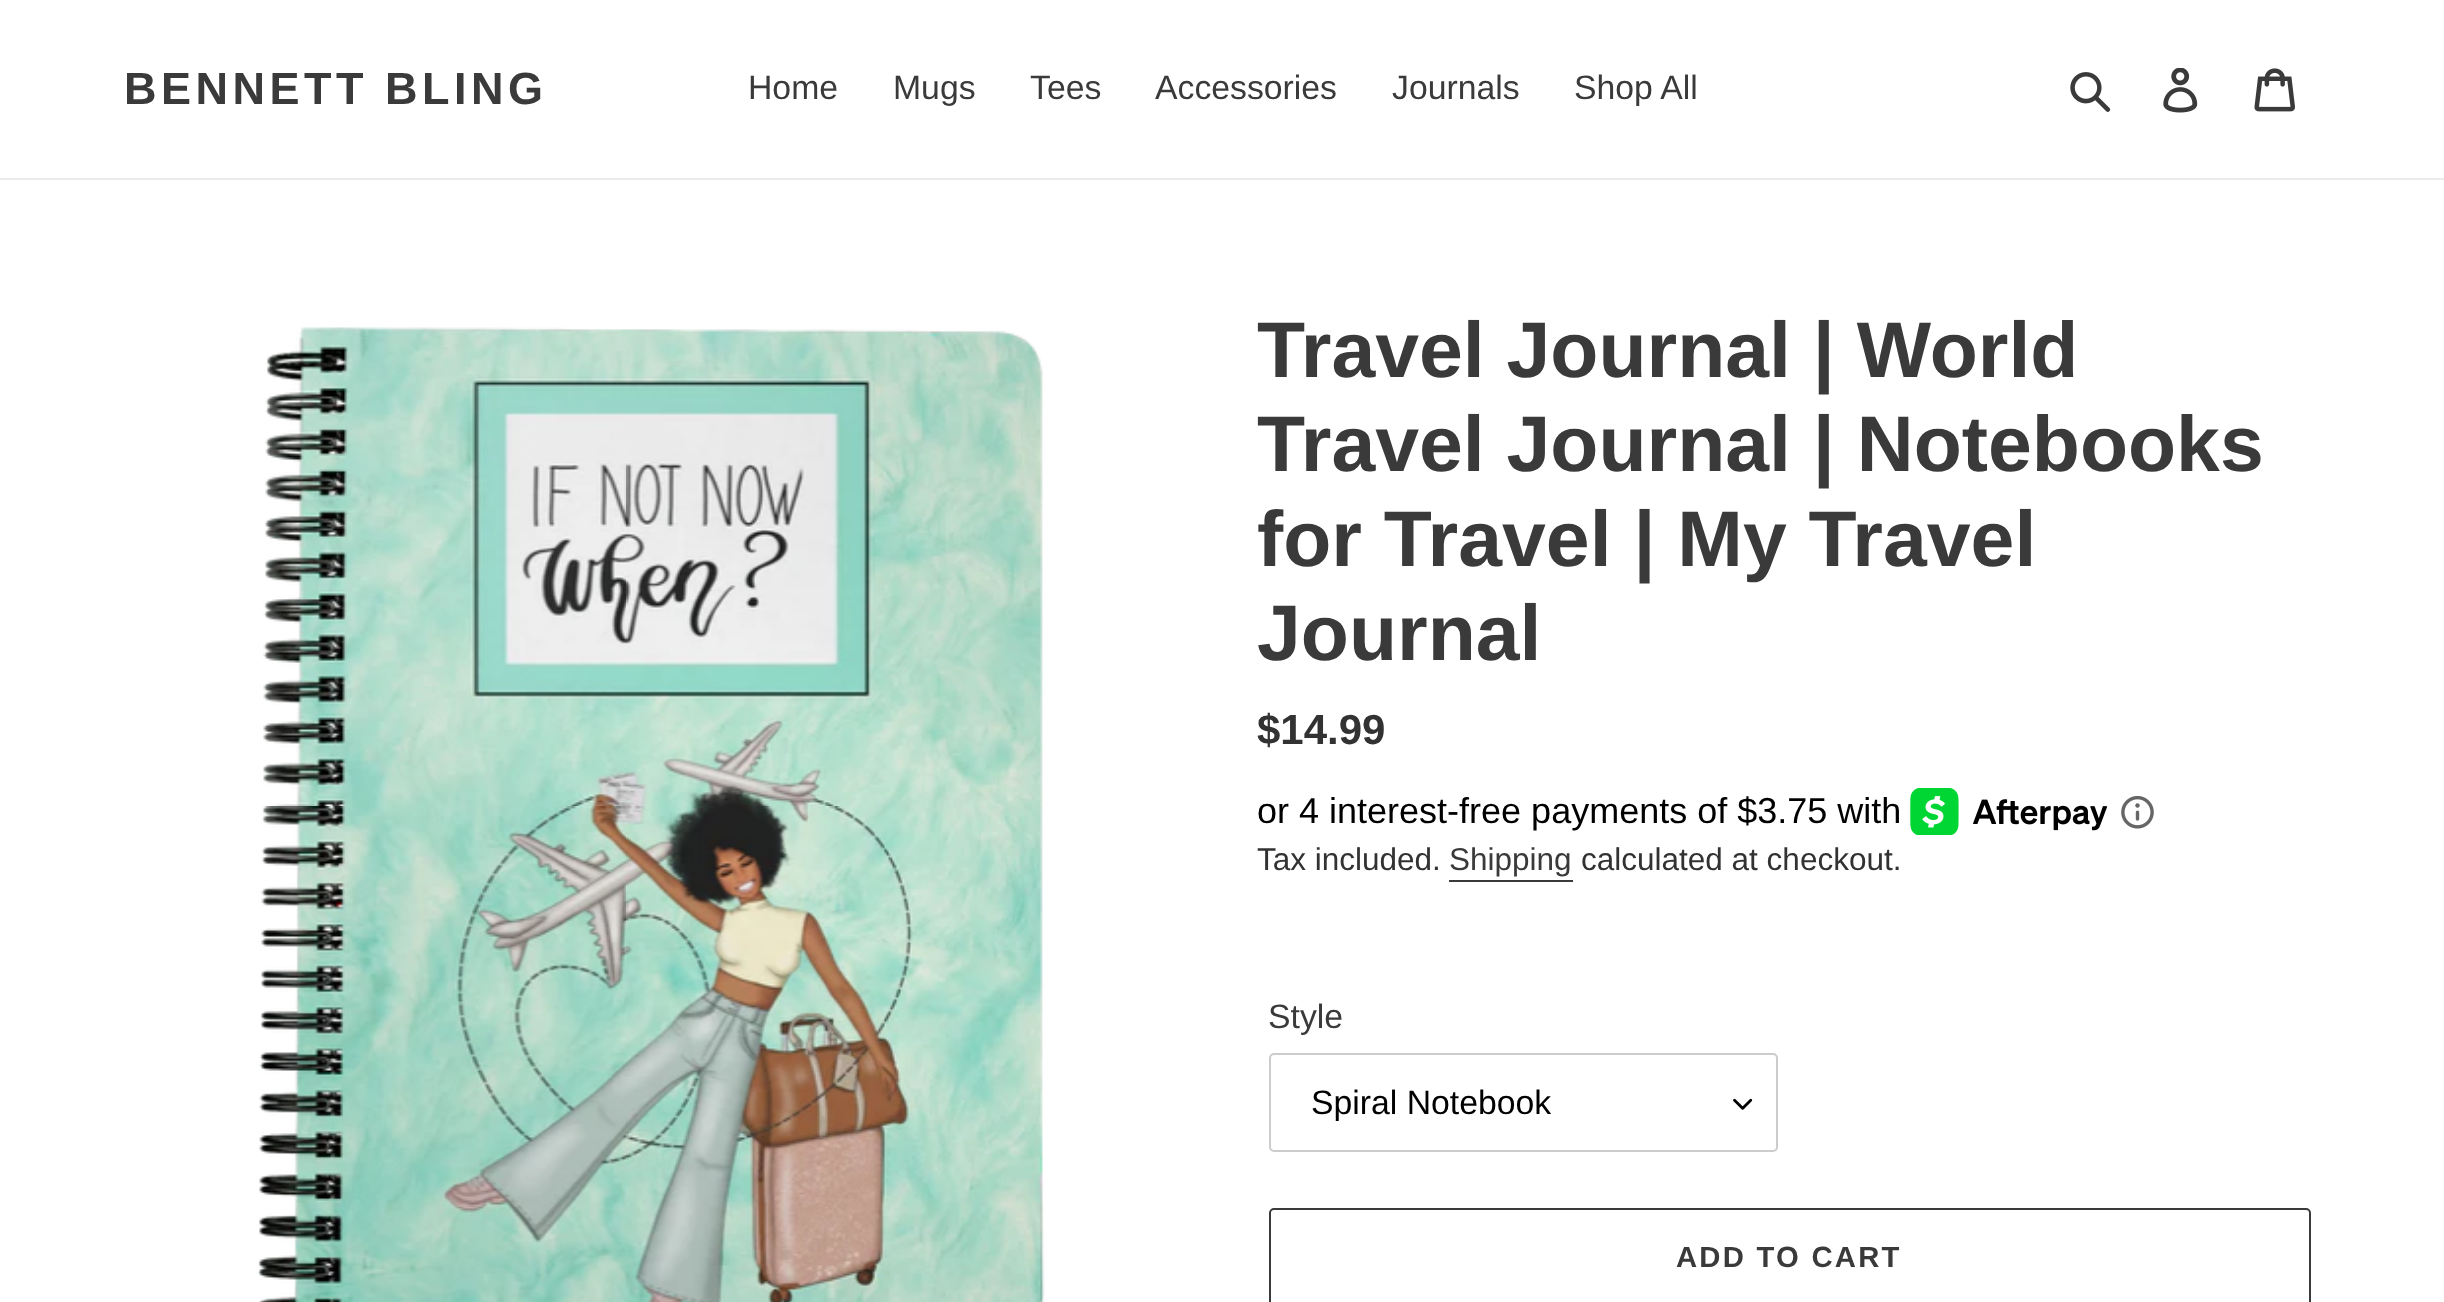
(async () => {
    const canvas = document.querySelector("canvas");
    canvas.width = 2444;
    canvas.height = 1302;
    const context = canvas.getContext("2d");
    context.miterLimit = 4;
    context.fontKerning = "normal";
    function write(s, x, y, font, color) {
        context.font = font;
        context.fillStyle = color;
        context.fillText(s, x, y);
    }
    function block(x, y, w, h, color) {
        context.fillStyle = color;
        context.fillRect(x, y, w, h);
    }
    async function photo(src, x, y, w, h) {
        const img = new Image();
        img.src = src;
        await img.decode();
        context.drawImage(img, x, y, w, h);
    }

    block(0, 0, 2444, 1302, "rgb(255, 255, 255)");
    block(0, 178, 2444, 2, "rgb(235, 235, 235)");
    context.letterSpacing = "4.5px";
    write("BENNETT BLING", 124, 104, "bold 45px Liberation Sans", "rgb(58, 58, 58)");
    context.letterSpacing = "0px";
    write("Home", 748, 99, "33.75px Liberation Sans", "rgb(58, 58, 58)");
    write("Mugs", 893, 99, "33.75px Liberation Sans", "rgb(58, 58, 58)");
    write("Tees", 1030, 99, "33.75px Liberation Sans", "rgb(58, 58, 58)");
    write("Accessories", 1155, 99, "33.75px Liberation Sans", "rgb(58, 58, 58)");
    write("Journals", 1392, 99, "33.75px Liberation Sans", "rgb(58, 58, 58)");
    write("Shop All", 1574, 99, "33.75px Liberation Sans", "rgb(58, 58, 58)");
    await photo("media/1.png", 2070, 72, 41, 40);
    await photo("media/2.png", 2163, 68, 35, 45);
    await photo("media/3.png", 2254, 68, 41, 44);
    await photo("media/4.png", 257, 327, 788, 975);
    write("Travel Journal | World", 1257, 377, "bold 78.75px Liberation Sans", "rgb(58, 58, 58)");
    write("Travel Journal | Notebooks", 1257, 471, "bold 78.75px Liberation Sans", "rgb(58, 58, 58)");
    write("for Travel | My Travel", 1257, 566, "bold 78.75px Liberation Sans", "rgb(58, 58, 58)");
    write("Journal", 1257, 660, "bold 78.75px Liberation Sans", "rgb(58, 58, 58)");
    write("$14.99", 1257, 744, "bold 42px Liberation Sans", "rgb(51, 50, 50)");
    write("or 4 interest-free payments of $3.75 with", 1257, 823, "36px Liberation Sans", "rgb(0, 0, 0)");
    await photo("media/5.png", 1910, 788, 198, 47);
    await photo("media/6.png", 2121, 795, 33, 34);
    write("Tax included.", 1257, 870, "31.5px Liberation Sans", "rgb(51, 50, 50)");
    write("Shipping", 1449, 870, "31.5px Liberation Sans", "rgb(58, 58, 58)");
    block(1449, 880, 124, 2, "rgb(58, 58, 58)");
    write("calculated at checkout.", 1581, 870, "31.5px Liberation Sans", "rgb(51, 50, 50)");
    write("Style", 1268, 1028, "33.75px Liberation Sans", "rgb(58, 58, 58)");
    await photo("media/7.png", 1733, 1098, 20, 12);
    context.beginPath();
    context.roundRect(1270, 1054, 507, 97, 4);
    context.strokeStyle = "rgb(204, 204, 204)";
    context.lineWidth = 2;
    context.stroke();
    write("Spiral Notebook", 1311, 1114, "33.75px Liberation Sans", "rgb(0, 0, 0)");
    context.beginPath();
    context.roundRect(1270, 1209, 1040, 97, 4);
    context.strokeStyle = "rgb(58, 58, 58)";
    context.stroke();
    context.letterSpacing = "2.25px";
    write("ADD TO CART", 1676, 1267, "bold 29.25px Liberation Sans", "rgb(58, 58, 58)");
})();
